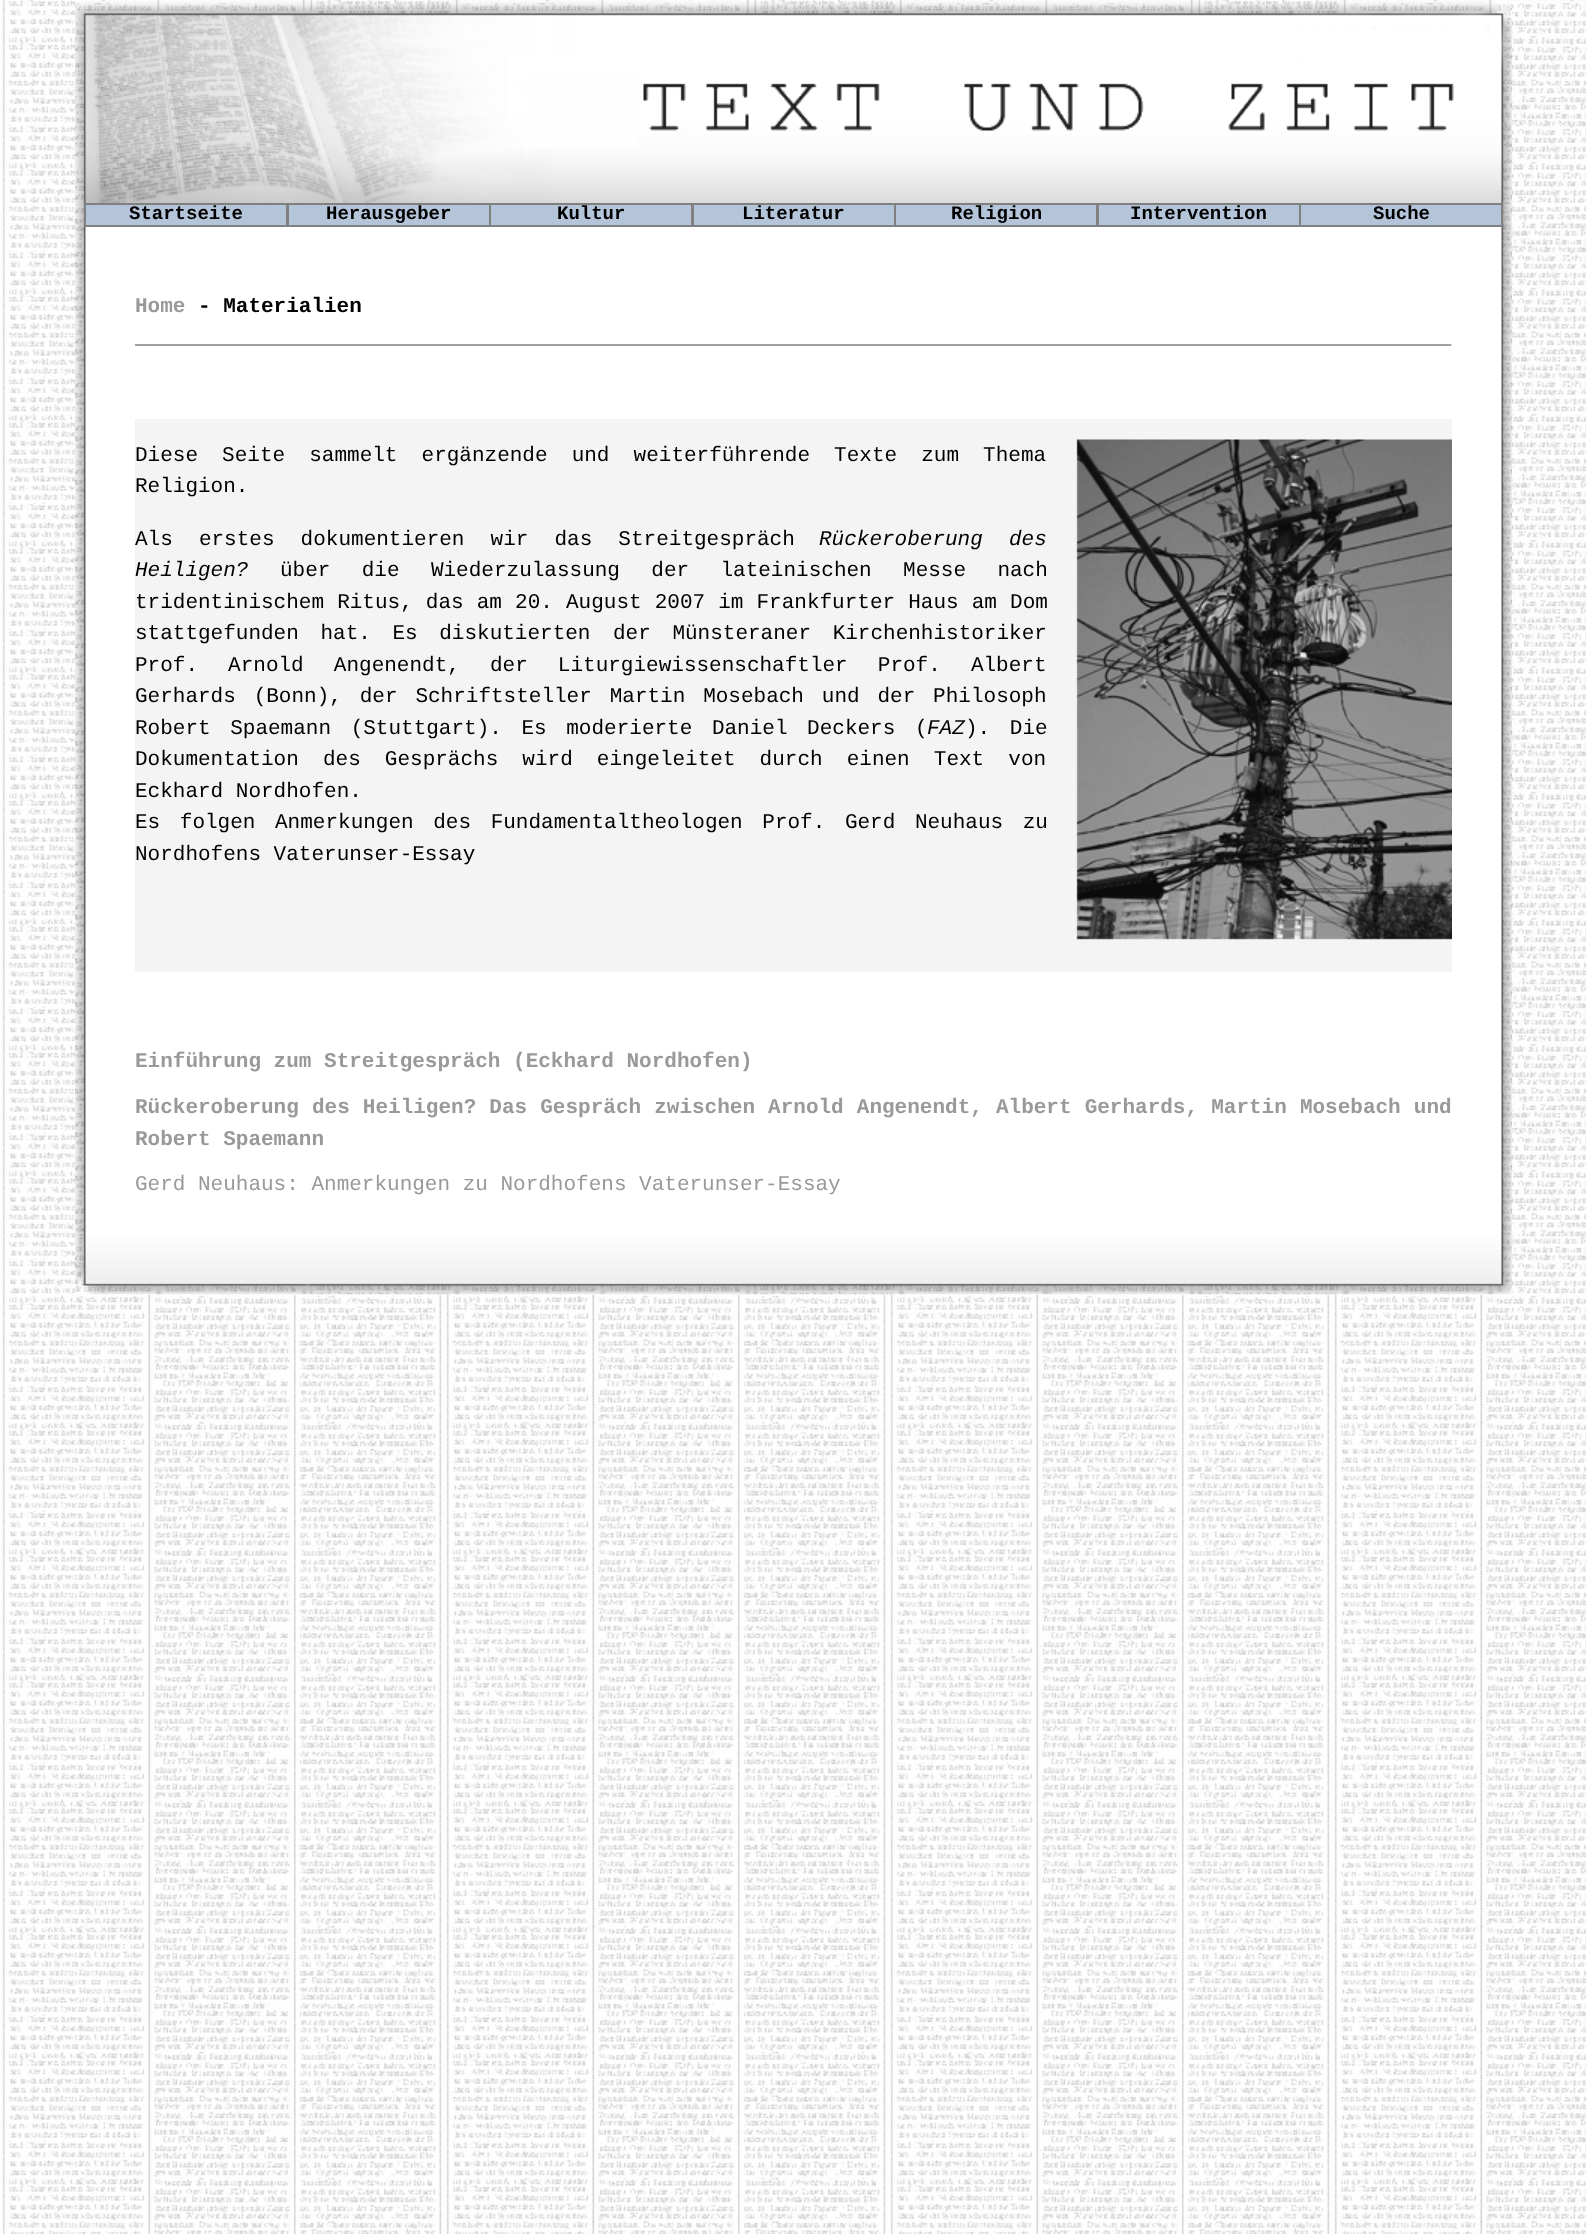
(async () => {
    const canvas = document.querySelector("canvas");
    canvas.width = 1586;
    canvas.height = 2234;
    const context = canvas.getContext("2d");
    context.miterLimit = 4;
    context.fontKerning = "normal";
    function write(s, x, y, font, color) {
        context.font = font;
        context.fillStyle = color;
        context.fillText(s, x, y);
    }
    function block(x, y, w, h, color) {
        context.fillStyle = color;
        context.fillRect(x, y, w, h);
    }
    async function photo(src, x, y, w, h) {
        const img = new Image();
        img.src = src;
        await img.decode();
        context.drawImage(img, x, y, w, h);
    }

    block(0, 0, 1586, 2234, "rgb(255, 255, 255)");
    await photo("media/1.png", 0, 0, 1586, 2234);
    await photo("media/2.png", 75, 0, 1437, 204);
    await photo("media/3.png", 75, 204, 1437, 1032);
    context.fillStyle = "rgb(180, 196, 217)";
    context.beginPath();
    context.rect(85, 204, 202, 22);
    context.fill();
    context.strokeStyle = "rgb(128, 128, 128)";
    context.lineWidth = 2;
    context.stroke();
    write("Startseite", 129, 219, "bold 19px Liberation Mono", "rgb(0, 0, 0)");
    context.fillStyle = "rgb(180, 196, 217)";
    context.beginPath();
    context.rect(288, 204, 202, 22);
    context.fill();
    context.stroke();
    write("Herausgeber", 326, 219, "bold 19px Liberation Mono", "rgb(0, 0, 0)");
    context.fillStyle = "rgb(180, 196, 217)";
    context.beginPath();
    context.rect(490, 204, 202, 22);
    context.fill();
    context.stroke();
    write("Kultur", 557, 219, "bold 19px Liberation Mono", "rgb(0, 0, 0)");
    context.fillStyle = "rgb(180, 196, 217)";
    context.beginPath();
    context.rect(693, 204, 202, 22);
    context.fill();
    context.stroke();
    write("Literatur", 742, 219, "bold 19px Liberation Mono", "rgb(0, 0, 0)");
    context.fillStyle = "rgb(180, 196, 217)";
    context.beginPath();
    context.rect(895, 204, 202, 22);
    context.fill();
    context.stroke();
    write("Religion", 951, 219, "bold 19px Liberation Mono", "rgb(0, 0, 0)");
    context.fillStyle = "rgb(180, 196, 217)";
    context.beginPath();
    context.rect(1098, 204, 202, 22);
    context.fill();
    context.stroke();
    write("Intervention", 1130, 219, "bold 19px Liberation Mono", "rgb(0, 0, 0)");
    context.fillStyle = "rgb(180, 196, 217)";
    context.beginPath();
    context.rect(1300, 204, 202, 22);
    context.fill();
    context.stroke();
    write("Suche", 1373, 219, "bold 19px Liberation Mono", "rgb(0, 0, 0)");
    write("Home", 135, 312, "bold 21px Liberation Mono", "rgb(153, 153, 153)");
    write("- Materialien", 198, 312, "bold 21px Liberation Mono", "rgb(0, 0, 0)");
    block(135, 344, 1317, 2, "rgb(159, 159, 159)");
    block(1451, 344, 2, 2, "rgb(238, 238, 238)");
    block(135, 419, 1317, 553, "rgb(244, 244, 244)");
    context.wordSpacing = "11.5px";
    write("Diese Seite sammelt ergänzende und weiterführende Texte zum Thema", 135, 461, "21px Liberation Mono", "rgb(0, 0, 0)");
    await photo("media/4.png", 1076, 439, 376, 501);
    context.wordSpacing = "0px";
    write("Religion.", 135, 492, "21px Liberation Mono", "rgb(0, 0, 0)");
    context.wordSpacing = "13.5px";
    write("Als erstes dokumentieren wir das Streitgespräch", 135, 545, "21px Liberation Mono", "rgb(0, 0, 0)");
    write("Rückeroberung des", 819, 545, "italic 21px Liberation Mono", "rgb(0, 0, 0)");
    context.wordSpacing = "0px";
    write("Heiligen?", 135, 576, "italic 21px Liberation Mono", "rgb(0, 0, 0)");
    context.wordSpacing = "18.75px";
    write("über die Wiederzulassung der lateinischen Messe nach", 280, 576, "21px Liberation Mono", "rgb(0, 0, 0)");
    context.wordSpacing = "0.5px";
    write("tridentinischem Ritus, das am 20. August 2007 im Frankfurter Haus am Dom", 135, 608, "21px Liberation Mono", "rgb(0, 0, 0)");
    context.wordSpacing = "9px";
    write("stattgefunden hat. Es diskutierten", 135, 639, "21px Liberation Mono", "rgb(0, 0, 0)");
    write("der Münsteraner Kirchenhistoriker", 613, 639, "21px Liberation Mono", "rgb(0, 0, 0)");
    context.wordSpacing = "17.5px";
    write("Prof. Arnold Angenendt, der Liturgiewissenschaftler Prof. Albert", 135, 671, "21px Liberation Mono", "rgb(0, 0, 0)");
    context.wordSpacing = "5.25px";
    write("Gerhards (Bonn), der Schriftsteller Martin Mosebach und der Philosoph", 135, 702, "21px Liberation Mono", "rgb(0, 0, 0)");
    context.wordSpacing = "7px";
    write("Robert Spaemann (Stuttgart). Es moderierte Daniel Deckers (", 135, 734, "21px Liberation Mono", "rgb(0, 0, 0)");
    context.wordSpacing = "0px";
    write("FAZ", 927, 734, "italic 21px Liberation Mono", "rgb(0, 0, 0)");
    context.wordSpacing = "7px";
    write("). Die", 965, 734, "21px Liberation Mono", "rgb(0, 0, 0)");
    context.wordSpacing = "11.5px";
    write("Dokumentation des Gesprächs wird eingeleitet durch einen Text von", 135, 765, "21px Liberation Mono", "rgb(0, 0, 0)");
    context.wordSpacing = "0px";
    write("Eckhard Nordhofen.", 135, 797, "21px Liberation Mono", "rgb(0, 0, 0)");
    context.wordSpacing = "7px";
    write("Es folgen Anmerkungen des Fundamentaltheologen Prof. Gerd Neuhaus zu", 135, 828, "21px Liberation Mono", "rgb(0, 0, 0)");
    context.wordSpacing = "0px";
    write("Nordhofens Vaterunser-Essay", 135, 860, "21px Liberation Mono", "rgb(0, 0, 0)");
    write("Einführung zum Streitgespräch (Eckhard Nordhofen)", 135, 1067, "bold 21px Liberation Mono", "rgb(153, 153, 153)");
    context.wordSpacing = "0.5px";
    write("Rückeroberung des Heiligen? Das Gespräch zwischen Arnold Angenendt, Albert Gerhards, Martin Mosebach und", 135, 1113, "bold 21px Liberation Mono", "rgb(153, 153, 153)");
    context.wordSpacing = "0px";
    write("Robert Spaemann", 135, 1145, "bold 21px Liberation Mono", "rgb(153, 153, 153)");
    write("Gerd Neuhaus: Anmerkungen zu Nordhofens Vaterunser-Essay", 135, 1190, "21px Liberation Mono", "rgb(153, 153, 153)");
    block(85, 1294, 1416, 1, "rgb(255, 255, 255)");
    await photo("media/5.png", 75, 1236, 1437, 59);
})();
